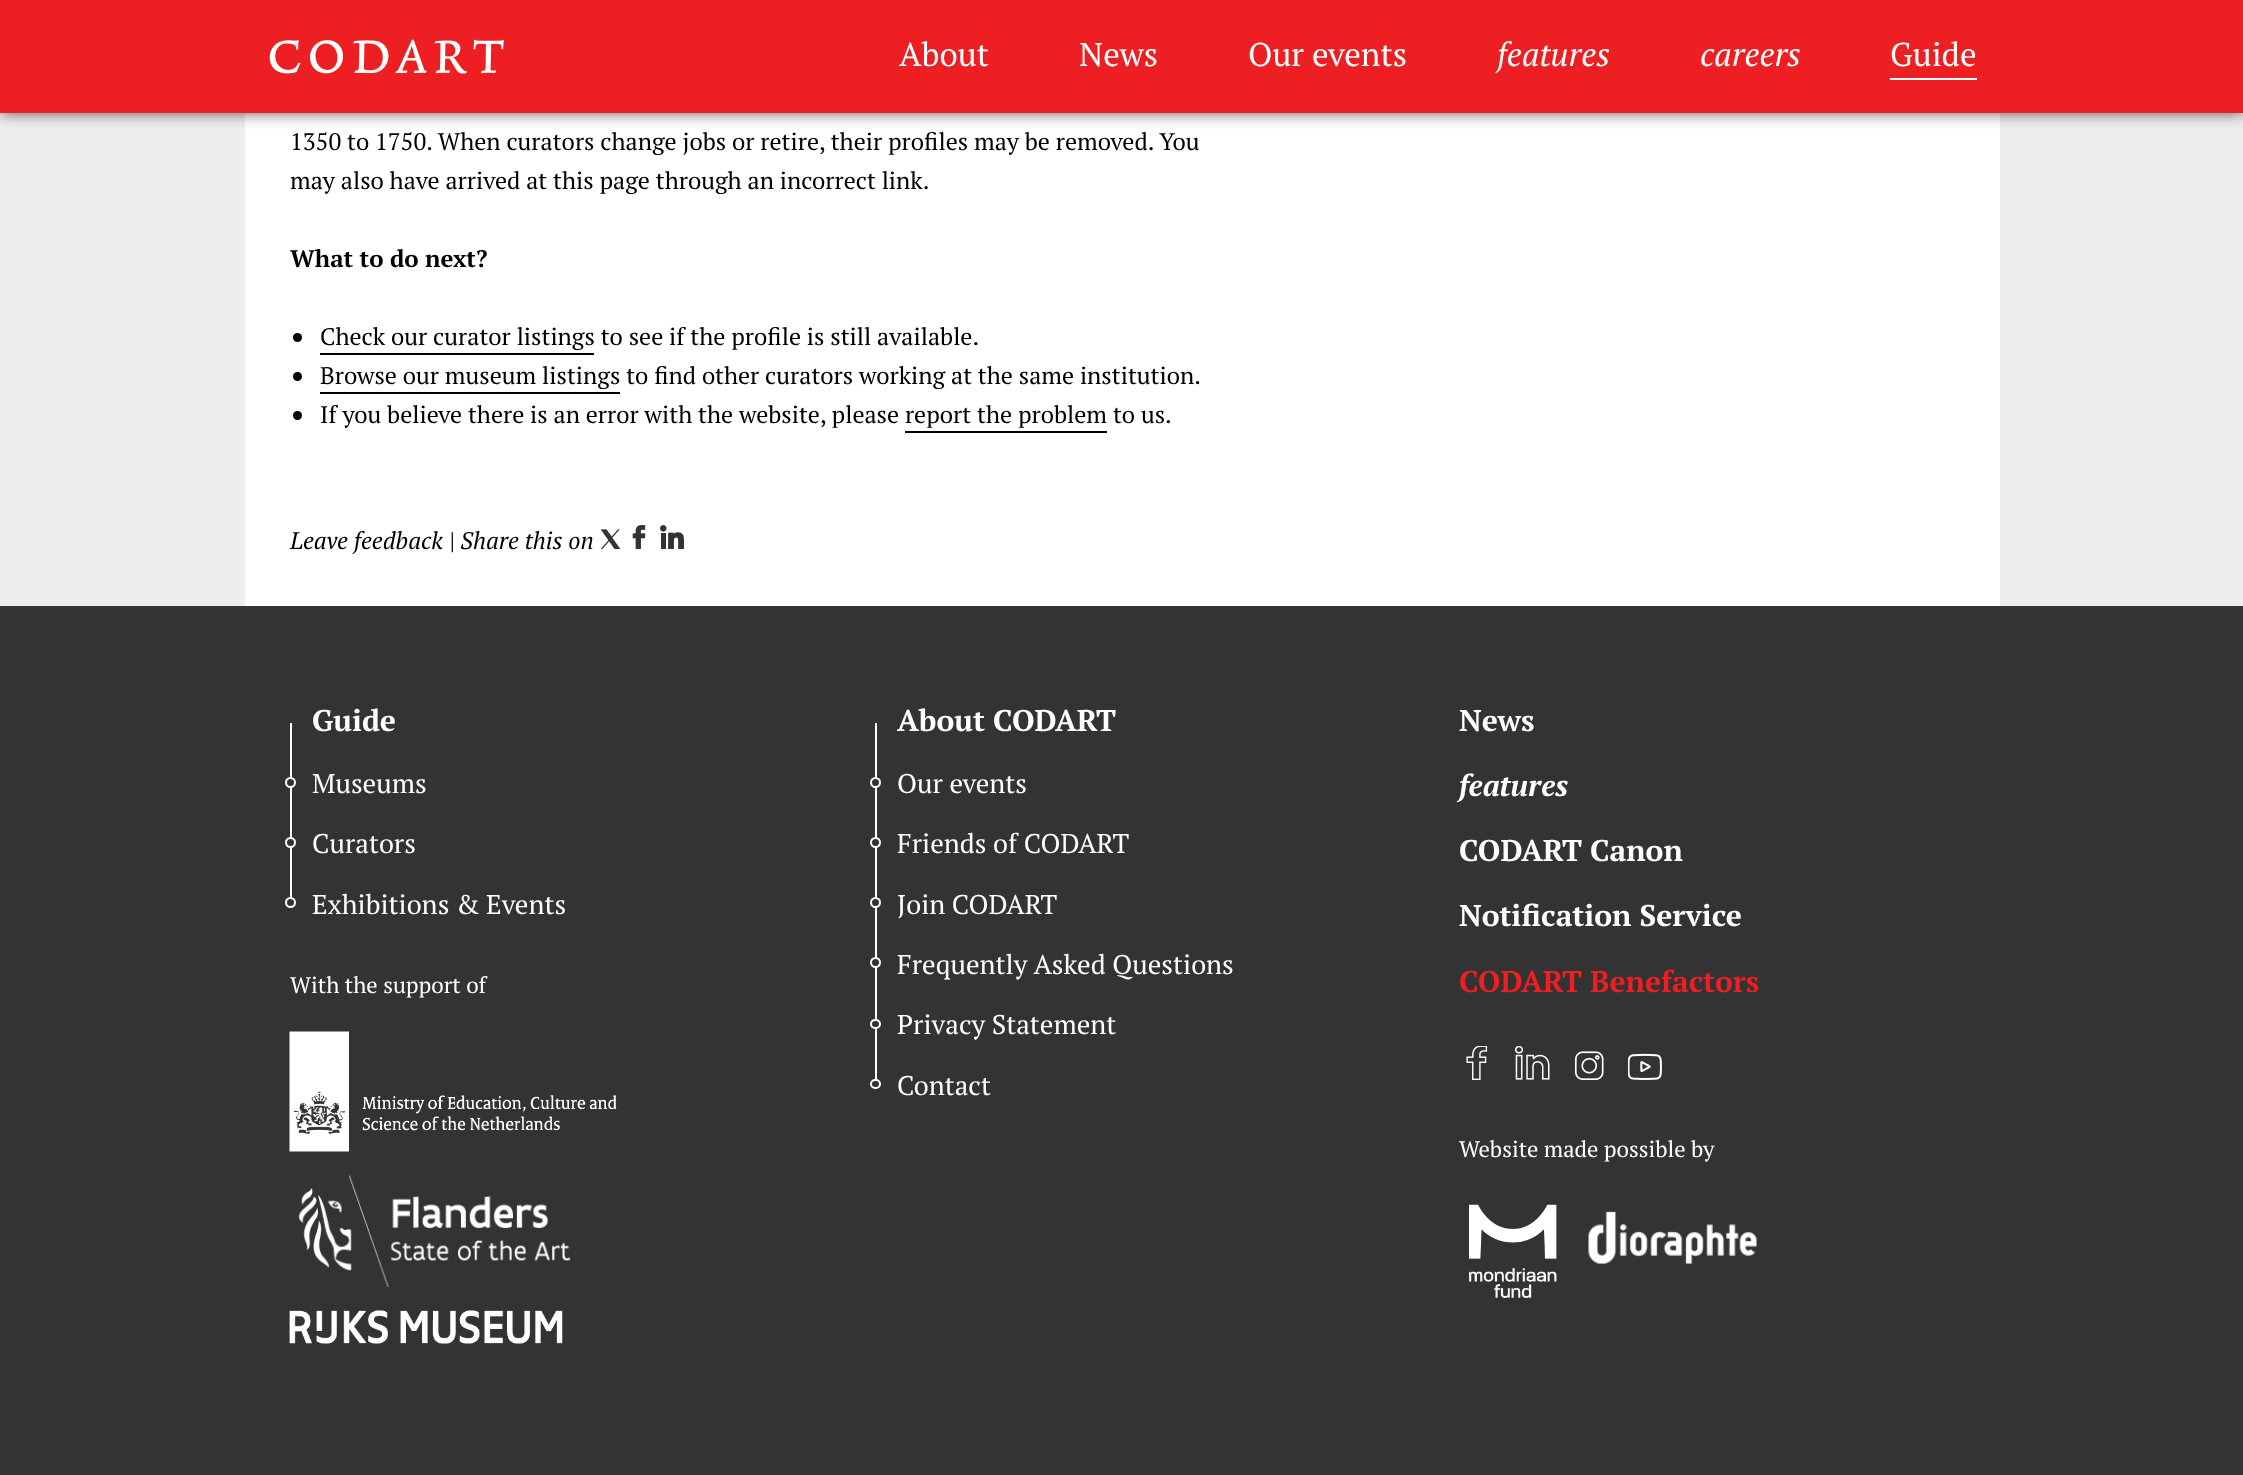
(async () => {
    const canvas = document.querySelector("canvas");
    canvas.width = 2243;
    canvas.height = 1475;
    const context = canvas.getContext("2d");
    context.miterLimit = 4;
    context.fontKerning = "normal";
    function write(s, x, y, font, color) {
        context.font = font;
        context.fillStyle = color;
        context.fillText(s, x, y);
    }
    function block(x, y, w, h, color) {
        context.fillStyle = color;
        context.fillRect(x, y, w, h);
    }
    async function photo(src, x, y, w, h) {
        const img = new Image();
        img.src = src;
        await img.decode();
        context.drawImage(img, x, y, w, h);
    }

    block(0, 0, 2243, 1475, "rgb(238, 238, 238)");
    block(245, 113, 1755, 493, "rgb(255, 255, 255)");
    context.fillStyle = "rgba(0, 0, 0, 0.65)";
    context.filter = "blur(7.5px)";
    context.beginPath();
    context.rect(0, 0, 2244, 113);
    context.fill();
    context.filter = "none";
    block(0, 0, 2243, 113, "rgb(237, 31, 35)");
    await photo("media/1.png", 269, 39, 235, 35);
    write("About", 899, 66, "33px PT Serif", "rgb(255, 255, 255)");
    write("News", 1079, 66, "33px PT Serif", "rgb(255, 255, 255)");
    write("Our events", 1248, 66, "33px PT Serif", "rgb(255, 255, 255)");
    write("features", 1497, 66, "italic 33px PT Serif", "rgb(255, 255, 255)");
    write("careers", 1700, 66, "italic 33px PT Serif", "rgb(255, 255, 255)");
    write("Guide", 1890, 66, "33px PT Serif", "rgb(255, 255, 255)");
    block(1890, 78, 87, 2, "rgb(255, 255, 255)");
    write("1350 to 1750. When curators change jobs or retire, their profiles may be removed. You", 290, 150, "24px PT Serif", "rgb(0, 0, 0)");
    write("may also have arrived at this page through an incorrect link.", 290, 189, "24px PT Serif", "rgb(0, 0, 0)");
    write("What to do next?", 290, 267, "bold 24px PT Serif", "rgb(0, 0, 0)");
    context.beginPath();
    context.arc(297.5, 337.5, 4.5, 0, Math.PI * 2);
    context.fill();
    write("Check our curator listings to see if the profile is still available.", 320, 345, "24px PT Serif", "rgb(0, 0, 0)");
    block(320, 353, 274, 2, "rgb(0, 0, 0)");
    context.beginPath();
    context.arc(297.5, 376.5, 4.5, 0, Math.PI * 2);
    context.fill();
    write("Browse our museum listings to find other curators working at the same institution.", 320, 384, "24px PT Serif", "rgb(0, 0, 0)");
    block(320, 392, 300, 2, "rgb(0, 0, 0)");
    context.beginPath();
    context.arc(297.5, 415.5, 4.5, 0, Math.PI * 2);
    context.fill();
    write("If you believe there is an error with the website, please report the problem to us.", 320, 423, "24px PT Serif", "rgb(0, 0, 0)");
    block(905, 431, 202, 2, "rgb(0, 0, 0)");
    write("Leave feedback | Share this on", 290, 549, "italic 24px PT Serif", "rgb(0, 0, 0)");
    await photo("media/2.png", 600, 529, 21, 20);
    await photo("media/3.png", 632, 525, 14, 24);
    await photo("media/4.png", 660, 525, 24, 24);
    block(0, 606, 2243, 869, "rgb(51, 51, 51)");
    write("Guide", 312, 731, "bold 30px PT Serif", "rgb(255, 255, 255)");
    block(290, 723, 2, 180, "rgb(255, 255, 255)");
    write("Museums", 312, 793, "27px PT Serif", "rgb(255, 255, 255)");
    context.fillStyle = "rgb(51, 51, 51)";
    context.beginPath();
    context.arc(290.5, 782.5, 4.5, 0, Math.PI * 2);
    context.fill();
    context.strokeStyle = "rgb(255, 255, 255)";
    context.lineWidth = 2;
    context.stroke();
    context.beginPath();
    context.arc(290.5, 842.5, 4.5, 0, Math.PI * 2);
    context.fill();
    context.stroke();
    write("Curators", 312, 853, "27px PT Serif", "rgb(255, 255, 255)");
    context.fillStyle = "rgb(51, 51, 51)";
    context.beginPath();
    context.arc(290.5, 902.5, 4.5, 0, Math.PI * 2);
    context.fill();
    context.stroke();
    write("Exhibitions & Events", 312, 914, "27px PT Serif", "rgb(255, 255, 255)");
    write("With the support of", 290, 993, "22.5px PT Serif", "rgb(255, 255, 255)");
    await photo("media/5.png", 289, 1031, 328, 121);
    await photo("media/6.png", 298, 1175, 273, 112);
    await photo("media/7.png", 289, 1310, 274, 34);
    write("About CODART", 897, 731, "bold 30px PT Serif", "rgb(255, 255, 255)");
    block(875, 723, 2, 362, "rgb(255, 255, 255)");
    write("Our events", 897, 793, "27px PT Serif", "rgb(255, 255, 255)");
    context.fillStyle = "rgb(51, 51, 51)";
    context.beginPath();
    context.arc(875.5, 782.5, 4.5, 0, Math.PI * 2);
    context.fill();
    context.stroke();
    context.beginPath();
    context.arc(875.5, 842.5, 4.5, 0, Math.PI * 2);
    context.fill();
    context.stroke();
    write("Friends of CODART", 897, 853, "27px PT Serif", "rgb(255, 255, 255)");
    context.fillStyle = "rgb(51, 51, 51)";
    context.beginPath();
    context.arc(875.5, 902.5, 4.5, 0, Math.PI * 2);
    context.fill();
    context.stroke();
    write("Join CODART", 897, 914, "27px PT Serif", "rgb(255, 255, 255)");
    context.fillStyle = "rgb(51, 51, 51)";
    context.beginPath();
    context.arc(875.5, 962.5, 4.5, 0, Math.PI * 2);
    context.fill();
    context.stroke();
    write("Frequently Asked Questions", 897, 974, "27px PT Serif", "rgb(255, 255, 255)");
    context.fillStyle = "rgb(51, 51, 51)";
    context.beginPath();
    context.roundRect(871, 1020, 9, 8, 4);
    context.fill();
    context.stroke();
    write("Privacy Statement", 897, 1034, "27px PT Serif", "rgb(255, 255, 255)");
    context.fillStyle = "rgb(51, 51, 51)";
    context.beginPath();
    context.roundRect(871, 1080, 9, 8, 4);
    context.fill();
    context.stroke();
    write("Contact", 897, 1095, "27px PT Serif", "rgb(255, 255, 255)");
    write("News", 1459, 731, "bold 30px PT Serif", "rgb(255, 255, 255)");
    write("features", 1459, 796, "italic bold 30px PT Serif", "rgb(255, 255, 255)");
    write("CODART Canon", 1459, 861, "bold 30px PT Serif", "rgb(255, 255, 255)");
    write("Notification Service", 1459, 926, "bold 30px PT Serif", "rgb(255, 255, 255)");
    write("CODART Benefactors", 1459, 992, "bold 30px PT Serif", "rgb(237, 31, 35)");
    await photo("media/8.png", 1466, 1046, 22, 34);
    await photo("media/9.png", 1515, 1046, 35, 34);
    await photo("media/10.png", 1574, 1051, 30, 29);
    await photo("media/11.png", 1628, 1053, 34, 27);
    write("Website made possible by", 1459, 1157, "22.5px PT Serif", "rgb(255, 255, 255)");
    await photo("media/12.png", 1469, 1204, 88, 94);
    await photo("media/13.png", 1588, 1211, 169, 53);
})();
